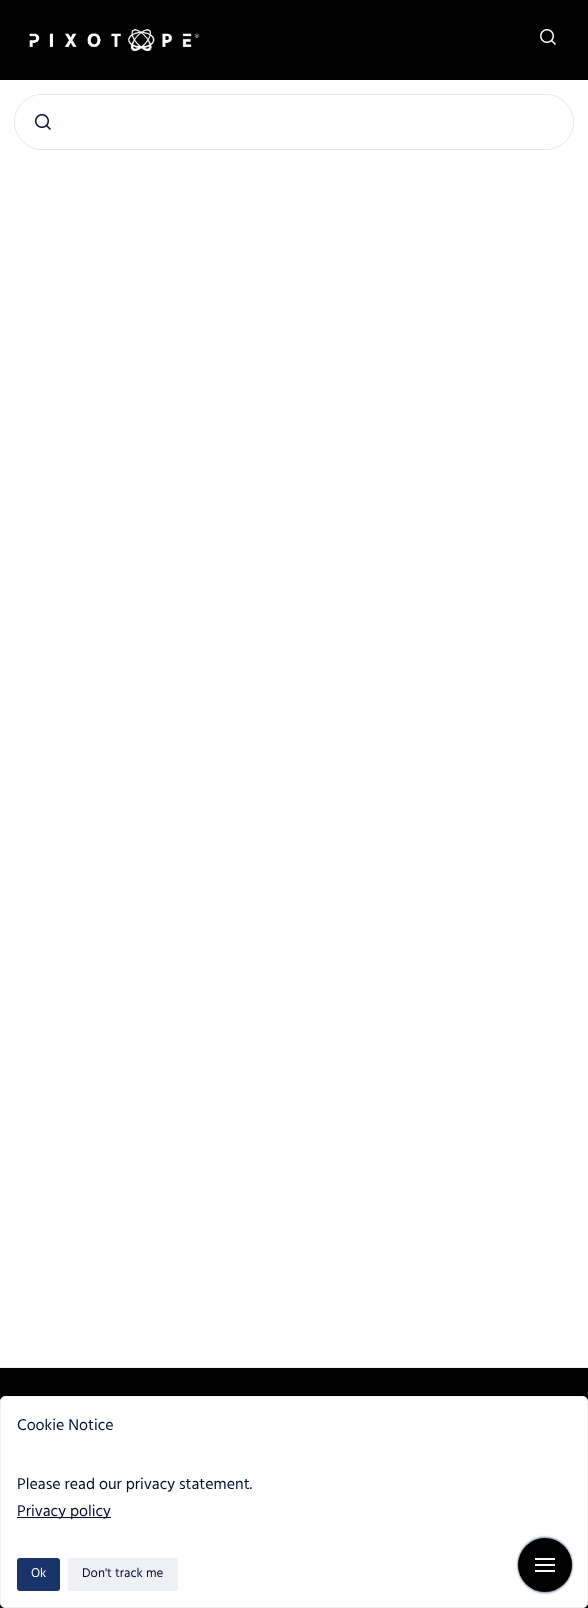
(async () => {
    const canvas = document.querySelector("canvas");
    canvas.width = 588;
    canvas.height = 1608;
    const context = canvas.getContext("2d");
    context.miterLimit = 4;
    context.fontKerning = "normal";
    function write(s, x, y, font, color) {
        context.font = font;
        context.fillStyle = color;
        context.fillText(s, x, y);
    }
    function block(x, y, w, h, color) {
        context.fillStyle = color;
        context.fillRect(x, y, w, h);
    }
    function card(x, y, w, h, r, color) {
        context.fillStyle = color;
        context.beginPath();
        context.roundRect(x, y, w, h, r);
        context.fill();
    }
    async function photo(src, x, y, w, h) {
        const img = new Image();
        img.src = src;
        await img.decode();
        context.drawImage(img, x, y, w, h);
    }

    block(0, 0, 588, 1608, "rgb(255, 255, 255)");
    block(0, 0, 588, 80, "rgb(0, 0, 0)");
    await photo("media/1.png", 29, 29, 171, 23);
    await photo("media/2.png", 540, 29, 16, 16);
    context.beginPath();
    context.roundRect(14.5, 94.5, 559, 55, 27.5);
    context.strokeStyle = "rgb(226, 229, 235)";
    context.stroke();
    card(15, 95, 558, 54, 27, "rgb(255, 255, 255)");
    await photo("media/3.png", 35, 114, 16, 16);
    block(0, 1368, 588, 240, "rgb(0, 0, 0)");
    block(0, 1367, 588, 1, "rgb(239, 240, 244)");
    context.fillStyle = "rgb(255, 255, 255)";
    context.beginPath();
    context.roundRect(0.5, 1396.5, 587, 211, 4.5);
    context.fill();
    context.strokeStyle = "rgb(239, 240, 244)";
    context.stroke();
    write("Cookie Notice", 17, 1430, "16px Hind", "rgb(0, 12, 52)");
    write("Please read our privacy statement.", 17, 1489, "16px Hind", "rgb(0, 12, 52)");
    block(17, 1517, 94, 1, "rgb(0, 12, 52)");
    write("Privacy policy", 17, 1516, "16px Hind", "rgb(0, 12, 52)");
    card(17, 1558, 43, 33, 3, "rgb(25, 52, 104)");
    write("Ok", 31, 1577, "13px Hind", "rgb(255, 255, 255)");
    card(68, 1558, 110, 33, 3, "rgb(239, 240, 244)");
    write("Don't track me", 82, 1577, "13px Hind", "rgb(0, 12, 52)");
    context.fillStyle = "rgb(122, 134, 154)";
    context.filter = "blur(1px)";
    context.beginPath();
    context.roundRect(518, 1537, 54, 54, 27);
    context.fill();
    context.filter = "none";
    context.filter = "blur(1px)";
    context.beginPath();
    context.roundRect(518, 1539, 54, 54, 27);
    context.fill();
    context.filter = "none";
    context.fillStyle = "rgb(0, 0, 0)";
    context.beginPath();
    context.arc(545, 1565, 27, 0, Math.PI * 2);
    context.fill();
    block(535, 1558, 20, 2, "rgb(247, 250, 253)");
    block(535, 1564, 20, 2, "rgb(247, 250, 253)");
    block(535, 1570, 20, 2, "rgb(247, 250, 253)");
})();
